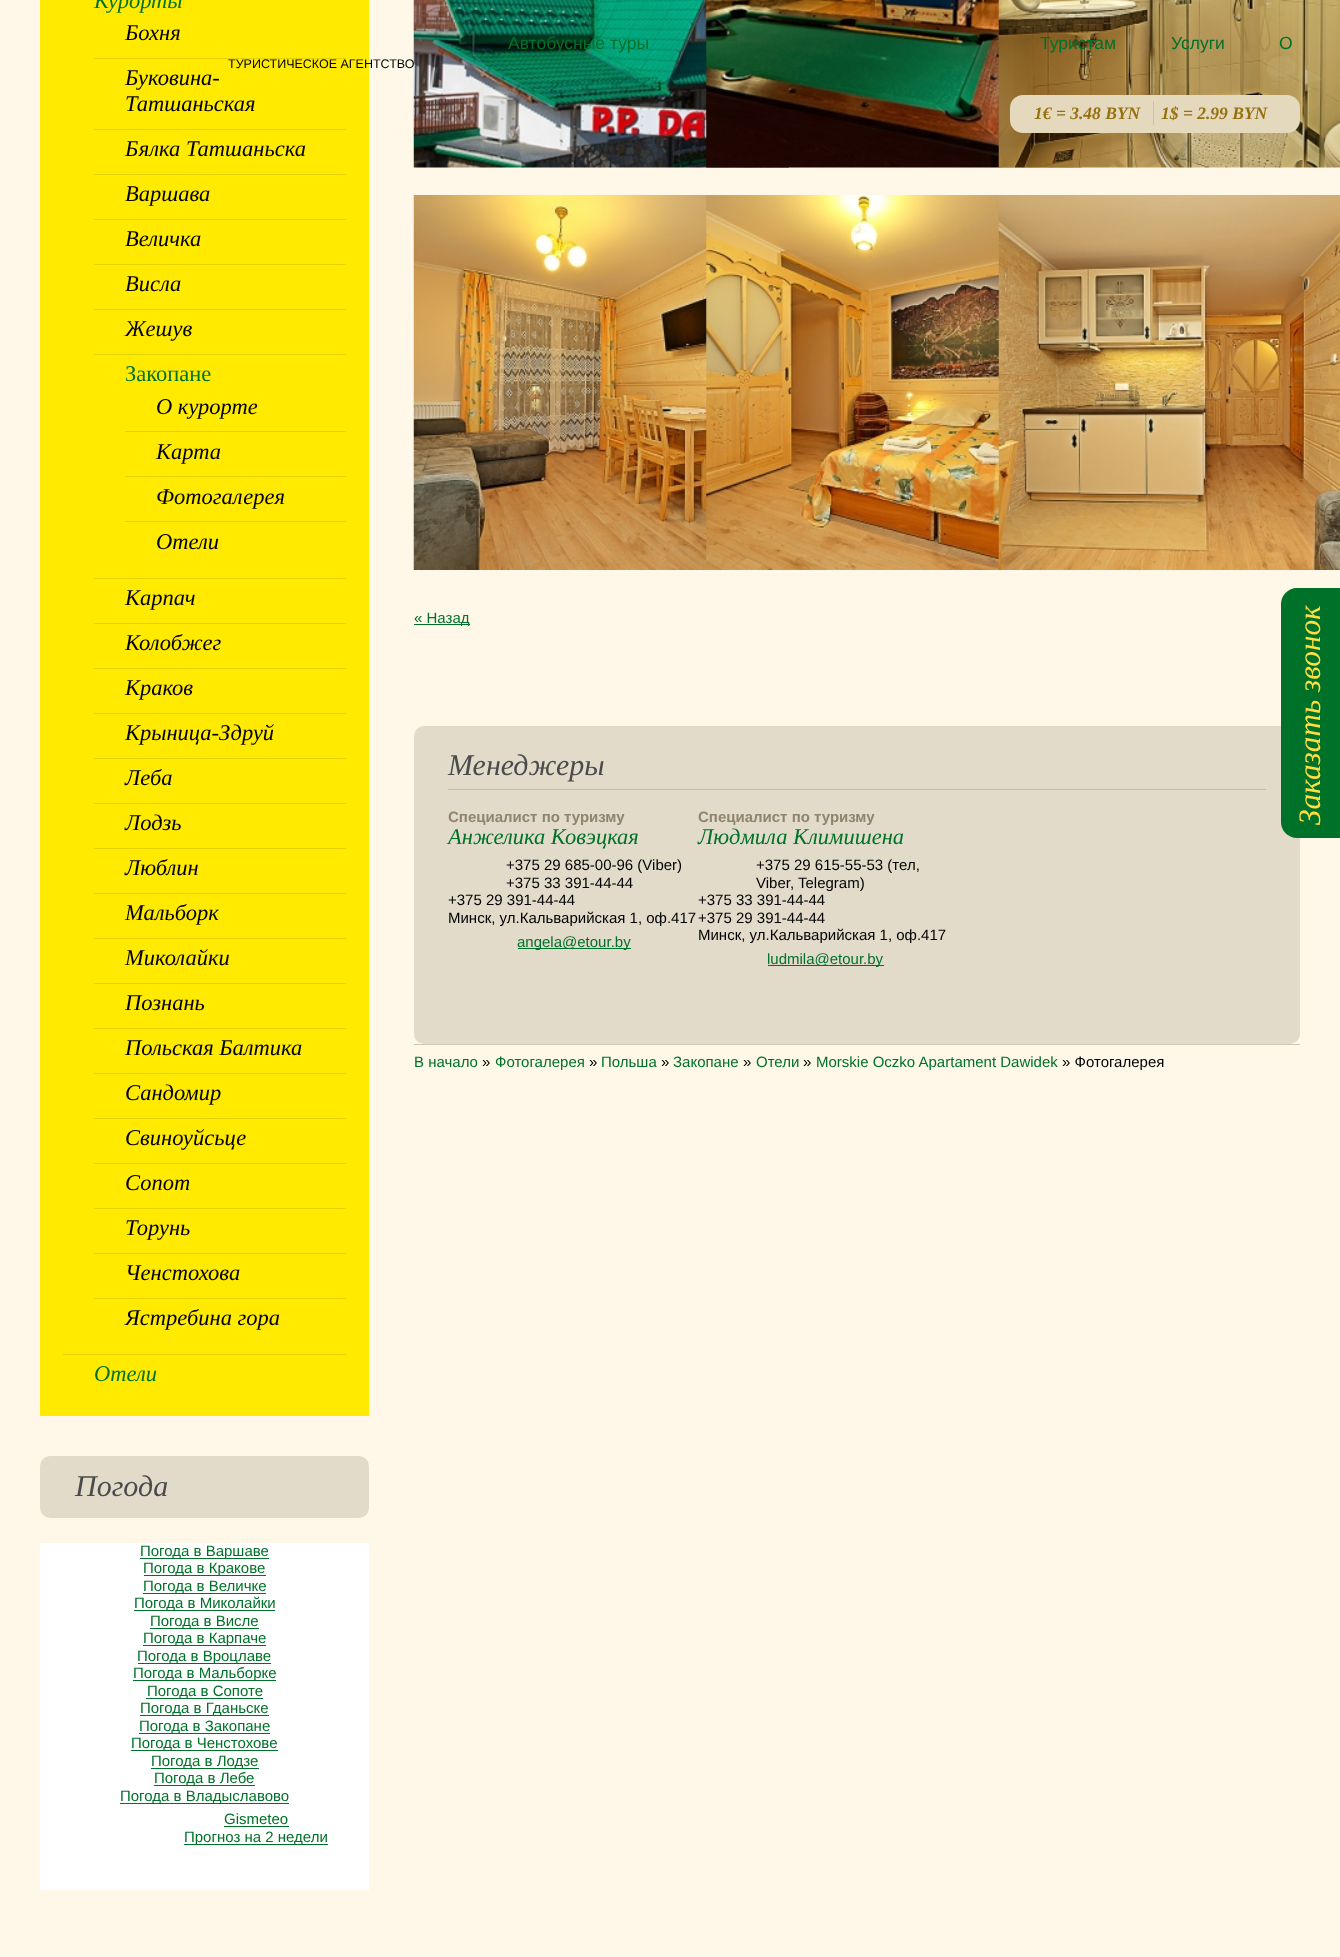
(async () => {
    const canvas = document.querySelector("canvas");
    canvas.width = 1340;
    canvas.height = 1957;
    const context = canvas.getContext("2d");
    context.miterLimit = 4;
    context.fontKerning = "normal";
    function write(s, x, y, font, color) {
        context.font = font;
        context.fillStyle = color;
        context.fillText(s, x, y);
    }
    function block(x, y, w, h, color) {
        context.fillStyle = color;
        context.fillRect(x, y, w, h);
    }
    function card(x, y, w, h, r, color) {
        context.fillStyle = color;
        context.beginPath();
        context.roundRect(x, y, w, h, r);
        context.fill();
    }
    async function photo(src, x, y, w, h) {
        const img = new Image();
        img.src = src;
        await img.decode();
        context.drawImage(img, x, y, w, h);
    }

    block(0, 0, 1340, 1957, "rgb(255, 248, 232)");
    block(40, 0, 329, 1416, "rgb(255, 234, 0)");
    write("Курорты", 94, 8, "italic 22.5px Liberation Serif", "rgb(0, 113, 41)");
    write("Бохня", 125, 40, "italic 22.5px Liberation Serif", "rgb(0, 0, 0)");
    block(94, 58, 252, 1, "rgb(227, 209, 0)");
    write("Буковина-", 125, 85, "italic 22.5px Liberation Serif", "rgb(0, 0, 0)");
    write("Татшаньская", 125, 111, "italic 22.5px Liberation Serif", "rgb(0, 0, 0)");
    block(94, 129, 252, 1, "rgb(227, 209, 0)");
    write("Бялка Татшаньска", 125, 156, "italic 22.5px Liberation Serif", "rgb(0, 0, 0)");
    block(94, 174, 252, 1, "rgb(227, 209, 0)");
    write("Варшава", 125, 201, "italic 22.5px Liberation Serif", "rgb(0, 0, 0)");
    block(94, 219, 252, 1, "rgb(227, 209, 0)");
    write("Величка", 125, 246, "italic 22.5px Liberation Serif", "rgb(0, 0, 0)");
    block(94, 264, 252, 1, "rgb(227, 209, 0)");
    write("Висла", 125, 291, "italic 22.5px Liberation Serif", "rgb(0, 0, 0)");
    block(94, 309, 252, 1, "rgb(227, 209, 0)");
    write("Жешув", 125, 336, "italic 22.5px Liberation Serif", "rgb(0, 0, 0)");
    block(94, 354, 252, 1, "rgb(227, 209, 0)");
    write("Закопане", 125, 381, "22.5px Liberation Serif", "rgb(0, 113, 41)");
    write("О курорте", 156, 414, "italic 22.5px Liberation Serif", "rgb(0, 0, 0)");
    block(125, 431, 221, 1, "rgb(227, 209, 0)");
    write("Карта", 156, 459, "italic 22.5px Liberation Serif", "rgb(0, 0, 0)");
    block(125, 476, 221, 1, "rgb(227, 209, 0)");
    write("Фотогалерея", 156, 504, "italic 22.5px Liberation Serif", "rgb(0, 0, 0)");
    block(125, 521, 221, 1, "rgb(227, 209, 0)");
    write("Отели", 156, 549, "italic 22.5px Liberation Serif", "rgb(0, 0, 0)");
    block(94, 578, 252, 1, "rgb(227, 209, 0)");
    write("Карпач", 125, 605, "italic 22.5px Liberation Serif", "rgb(0, 0, 0)");
    block(94, 623, 252, 1, "rgb(227, 209, 0)");
    write("Колобжег", 125, 650, "italic 22.5px Liberation Serif", "rgb(0, 0, 0)");
    block(94, 668, 252, 1, "rgb(227, 209, 0)");
    write("Краков", 125, 695, "italic 22.5px Liberation Serif", "rgb(0, 0, 0)");
    block(94, 713, 252, 1, "rgb(227, 209, 0)");
    write("Крыница-Здруй", 125, 740, "italic 22.5px Liberation Serif", "rgb(0, 0, 0)");
    block(94, 758, 252, 1, "rgb(227, 209, 0)");
    write("Леба", 125, 785, "italic 22.5px Liberation Serif", "rgb(0, 0, 0)");
    block(94, 803, 252, 1, "rgb(227, 209, 0)");
    write("Лодзь", 125, 830, "italic 22.5px Liberation Serif", "rgb(0, 0, 0)");
    block(94, 848, 252, 1, "rgb(227, 209, 0)");
    write("Люблин", 125, 875, "italic 22.5px Liberation Serif", "rgb(0, 0, 0)");
    block(94, 893, 252, 1, "rgb(227, 209, 0)");
    write("Мальборк", 125, 920, "italic 22.5px Liberation Serif", "rgb(0, 0, 0)");
    block(94, 938, 252, 1, "rgb(227, 209, 0)");
    write("Миколайки", 125, 965, "italic 22.5px Liberation Serif", "rgb(0, 0, 0)");
    block(94, 983, 252, 1, "rgb(227, 209, 0)");
    write("Познань", 125, 1010, "italic 22.5px Liberation Serif", "rgb(0, 0, 0)");
    block(94, 1028, 252, 1, "rgb(227, 209, 0)");
    write("Польская Балтика", 125, 1055, "italic 22.5px Liberation Serif", "rgb(0, 0, 0)");
    block(94, 1073, 252, 1, "rgb(227, 209, 0)");
    write("Сандомир", 125, 1100, "italic 22.5px Liberation Serif", "rgb(0, 0, 0)");
    block(94, 1118, 252, 1, "rgb(227, 209, 0)");
    write("Свиноуйсьце", 125, 1145, "italic 22.5px Liberation Serif", "rgb(0, 0, 0)");
    block(94, 1163, 252, 1, "rgb(227, 209, 0)");
    write("Сопот", 125, 1190, "italic 22.5px Liberation Serif", "rgb(0, 0, 0)");
    block(94, 1208, 252, 1, "rgb(227, 209, 0)");
    write("Торунь", 125, 1235, "italic 22.5px Liberation Serif", "rgb(0, 0, 0)");
    block(94, 1253, 252, 1, "rgb(227, 209, 0)");
    write("Ченстохова", 125, 1280, "italic 22.5px Liberation Serif", "rgb(0, 0, 0)");
    block(94, 1298, 252, 1, "rgb(227, 209, 0)");
    write("Ястребина гора", 125, 1325, "italic 22.5px Liberation Serif", "rgb(0, 0, 0)");
    block(63, 1354, 283, 1, "rgb(227, 209, 0)");
    write("Отели", 94, 1381, "italic 22.5px Liberation Serif", "rgb(0, 113, 41)");
    card(40, 1456, 329, 62, 10, "rgb(226, 219, 202)");
    write("Погода", 75, 1496, "italic 30px Liberation Serif", "rgb(75, 75, 75)");
    block(40, 1543, 329, 347, "rgb(255, 255, 255)");
    block(140, 1558, 129, 1, "rgb(0, 113, 41)");
    write("Погода в Варшаве", 140, 1556, "15px Liberation Sans", "rgb(0, 113, 41)");
    block(144, 1575, 122, 1, "rgb(0, 113, 41)");
    write("Погода в Кракове", 143, 1573, "15px Liberation Sans", "rgb(0, 113, 41)");
    block(143, 1593, 123, 1, "rgb(0, 113, 41)");
    write("Погода в Величке", 143, 1591, "15px Liberation Sans", "rgb(0, 113, 41)");
    block(134, 1610, 141, 1, "rgb(0, 113, 41)");
    write("Погода в Миколайки", 134, 1608, "15px Liberation Sans", "rgb(0, 113, 41)");
    block(150, 1628, 109, 1, "rgb(0, 113, 41)");
    write("Погода в Висле", 150, 1626, "15px Liberation Sans", "rgb(0, 113, 41)");
    block(143, 1645, 123, 1, "rgb(0, 113, 41)");
    write("Погода в Карпаче", 143, 1643, "15px Liberation Sans", "rgb(0, 113, 41)");
    block(138, 1663, 133, 1, "rgb(0, 113, 41)");
    write("Погода в Вроцлаве", 137, 1661, "15px Liberation Sans", "rgb(0, 113, 41)");
    block(133, 1680, 143, 1, "rgb(0, 113, 41)");
    write("Погода в Мальборке", 133, 1678, "15px Liberation Sans", "rgb(0, 113, 41)");
    block(146, 1698, 117, 1, "rgb(0, 113, 41)");
    write("Погода в Сопоте", 147, 1696, "15px Liberation Sans", "rgb(0, 113, 41)");
    block(140, 1715, 129, 1, "rgb(0, 113, 41)");
    write("Погода в Гданьске", 140, 1713, "15px Liberation Sans", "rgb(0, 113, 41)");
    block(139, 1733, 131, 1, "rgb(0, 113, 41)");
    write("Погода в Закопане", 139, 1731, "15px Liberation Sans", "rgb(0, 113, 41)");
    block(131, 1750, 147, 1, "rgb(0, 113, 41)");
    write("Погода в Ченстохове", 131, 1748, "15px Liberation Sans", "rgb(0, 113, 41)");
    block(151, 1768, 108, 1, "rgb(0, 113, 41)");
    write("Погода в Лодзе", 151, 1766, "15px Liberation Sans", "rgb(0, 113, 41)");
    block(154, 1785, 101, 1, "rgb(0, 113, 41)");
    write("Погода в Лебе", 154, 1783, "15px Liberation Sans", "rgb(0, 113, 41)");
    block(120, 1803, 169, 1, "rgb(0, 113, 41)");
    write("Погода в Владыславово", 120, 1801, "15px Liberation Sans", "rgb(0, 113, 41)");
    write("Gismeteo", 224, 1824, "15px Liberation Sans", "rgb(0, 113, 41)");
    block(224, 1826, 65, 1, "rgb(0, 113, 41)");
    block(184, 1844, 144, 1, "rgb(0, 113, 41)");
    write("Прогноз на 2 недели", 184, 1842, "15px Liberation Sans", "rgb(0, 113, 41)");
    await photo("media/1.png", 413, 0, 376, 168);
    await photo("media/2.png", 706, 0, 376, 168);
    await photo("media/3.png", 998, 0, 342, 168);
    await photo("media/4.png", 413, 195, 294, 375);
    await photo("media/5.png", 706, 195, 293, 375);
    await photo("media/6.png", 998, 195, 342, 375);
    block(414, 624, 56, 1, "rgb(0, 113, 41)");
    write("« Назад", 414, 623, "15px Liberation Sans", "rgb(0, 113, 41)");
    card(414, 726, 886, 318, 10, "rgb(226, 219, 202)");
    block(448, 789, 818, 1, "rgb(196, 188, 167)");
    write("Менеджеры", 448, 775, "italic 30px Liberation Serif", "rgb(75, 75, 75)");
    write("Специалист по туризму", 448, 822, "bold 15px Liberation Sans", "rgb(143, 133, 109)");
    write("Анжелика Ковэцкая", 448, 844, "italic 22.5px Liberation Serif", "rgb(0, 113, 41)");
    write("+375 29 685-00-96 (Viber)", 506, 870, "15px Liberation Sans", "rgb(0, 0, 0)");
    write("+375 33 391-44-44", 506, 888, "15px Liberation Sans", "rgb(0, 0, 0)");
    write("+375 29 391-44-44", 448, 905, "15px Liberation Sans", "rgb(0, 0, 0)");
    write("Минск, ул.Кальварийская 1, оф.417", 448, 923, "15px Liberation Sans", "rgb(0, 0, 0)");
    block(518, 948, 113, 1, "rgb(0, 113, 41)");
    write("angela@etour.by", 517, 947, "15px Liberation Sans", "rgb(0, 113, 41)");
    write("Специалист по туризму", 698, 822, "bold 15px Liberation Sans", "rgb(143, 133, 109)");
    write("Людмила Климишена", 698, 844, "italic 22.5px Liberation Serif", "rgb(0, 113, 41)");
    write("+375 29 615-55-53 (тел,", 756, 870, "15px Liberation Sans", "rgb(0, 0, 0)");
    write("Viber, Telegram)", 756, 888, "15px Liberation Sans", "rgb(0, 0, 0)");
    write("+375 33 391-44-44", 698, 905, "15px Liberation Sans", "rgb(0, 0, 0)");
    write("+375 29 391-44-44", 698, 923, "15px Liberation Sans", "rgb(0, 0, 0)");
    write("Минск, ул.Кальварийская 1, оф.417", 698, 940, "15px Liberation Sans", "rgb(0, 0, 0)");
    block(768, 965, 116, 1, "rgb(0, 113, 41)");
    write("ludmila@etour.by", 767, 964, "15px Liberation Sans", "rgb(0, 113, 41)");
    block(414, 1044, 886, 1, "rgb(206, 199, 183)");
    write("В начало", 414, 1067, "15px Liberation Sans", "rgb(0, 113, 41)");
    write("»", 482, 1067, "15px Liberation Sans", "rgb(0, 0, 0)");
    write("Фотогалерея", 495, 1067, "15px Liberation Sans", "rgb(0, 113, 41)");
    write("»", 589, 1067, "15px Liberation Sans", "rgb(0, 0, 0)");
    write("Польша", 601, 1067, "15px Liberation Sans", "rgb(0, 113, 41)");
    write("»", 661, 1067, "15px Liberation Sans", "rgb(0, 0, 0)");
    write("Закопане", 673, 1067, "15px Liberation Sans", "rgb(0, 113, 41)");
    write("»", 743, 1067, "15px Liberation Sans", "rgb(0, 0, 0)");
    write("Отели", 756, 1067, "15px Liberation Sans", "rgb(0, 113, 41)");
    write("»", 803, 1067, "15px Liberation Sans", "rgb(0, 0, 0)");
    write("Morskie Oczko Apartament Dawidek", 816, 1067, "15px Liberation Sans", "rgb(0, 113, 41)");
    write("» Фотогалерея", 1062, 1067, "15px Liberation Sans", "rgb(0, 0, 0)");
    write("ТУРИСТИЧЕСКОЕ АГЕНТСТВО", 228, 68, "12.5px Liberation Sans", "rgb(0, 0, 0)");
    write("Автобусные туры", 508, 49, "17.5px Liberation Sans", "rgb(0, 113, 41)");
    write("Туристам", 1040, 49, "17.5px Liberation Sans", "rgb(0, 113, 41)");
    write("Услуги", 1171, 49, "17.5px Liberation Sans", "rgb(0, 113, 41)");
    write("О", 1279, 49, "17.5px Liberation Sans", "rgb(0, 113, 41)");
    card(1010, 95, 290, 38, 13, "rgb(228, 217, 189)");
    write("1€ = 3.48 BYN", 1034, 119, "italic bold 17.5px Liberation Serif", "rgb(151, 113, 16)");
    block(1153, 101, 1, 24, "rgb(209, 195, 158)");
    write("1$ = 2.99 BYN", 1161, 119, "italic bold 17.5px Liberation Serif", "rgb(151, 113, 16)");
    context.fillStyle = "rgb(0, 113, 41)";
    context.beginPath();
    context.roundRect(1281, 588, 59, 250, [16, 0, 0, 16]);
    context.fill();
    context.font = "italic 31.25px Liberation Serif";
    context.fillStyle = "rgb(255, 222, 66)";
    context.save();
    context.translate(1320, 825);
    context.rotate(-90 * Math.PI / 180);
    context.fillText("Заказать звонок", 0, 0);
    context.restore();
})();
